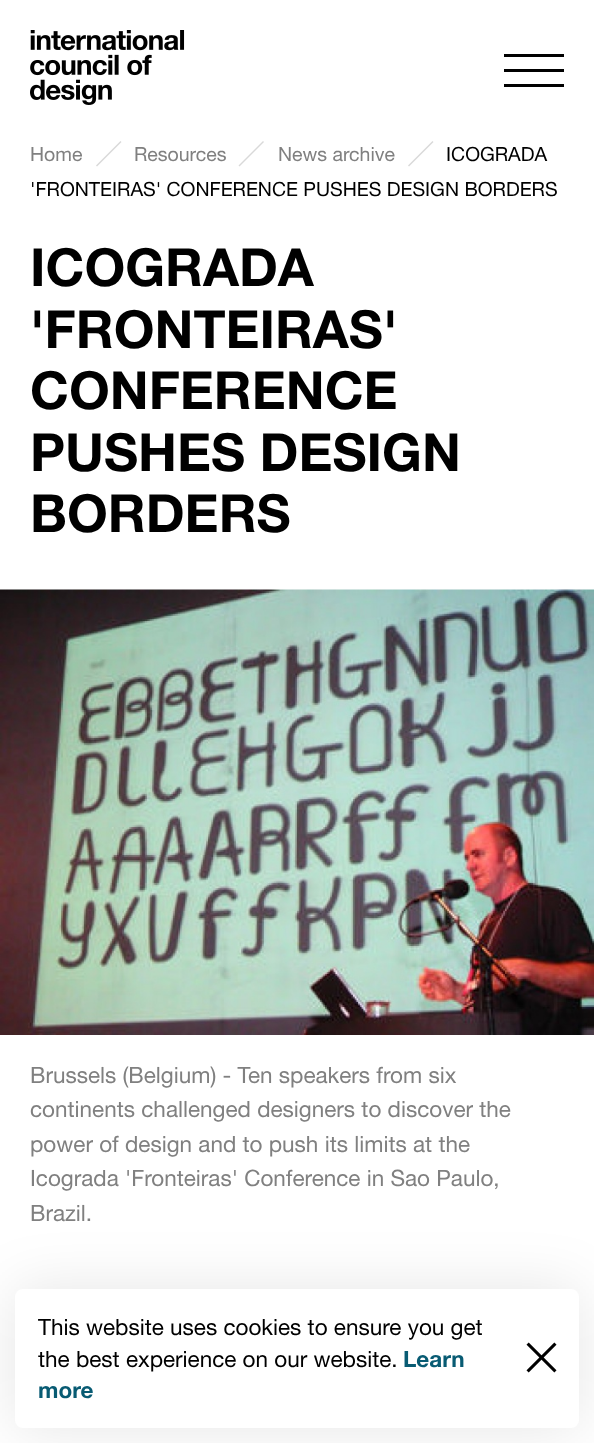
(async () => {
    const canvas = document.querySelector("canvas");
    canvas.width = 594;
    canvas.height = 1443;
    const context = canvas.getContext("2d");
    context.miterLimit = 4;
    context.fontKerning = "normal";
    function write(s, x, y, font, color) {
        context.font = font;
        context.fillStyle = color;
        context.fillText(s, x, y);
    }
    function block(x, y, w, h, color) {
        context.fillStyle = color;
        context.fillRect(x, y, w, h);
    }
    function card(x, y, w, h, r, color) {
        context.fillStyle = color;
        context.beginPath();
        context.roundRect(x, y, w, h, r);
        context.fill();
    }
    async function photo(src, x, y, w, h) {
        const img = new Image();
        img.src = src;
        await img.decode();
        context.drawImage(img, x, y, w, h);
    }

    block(0, 0, 594, 1443, "rgb(255, 255, 255)");
    await photo("media/1.png", 30, 30, 155, 75);
    block(504, 54, 60, 3, "rgb(0, 0, 0)");
    block(504, 69, 60, 3, "rgb(0, 0, 0)");
    block(504, 84, 60, 3, "rgb(0, 0, 0)");
    write("Home", 30, 161, "19.5px Helvetica Neue", "rgb(128, 128, 128)");
    context.beginPath();
    context.moveTo(96.5, 166);
    context.lineTo(121, 141.5);
    context.strokeStyle = "rgb(217, 217, 217)";
    context.lineWidth = 1.5;
    context.stroke();
    write("Resources", 134, 161, "19.5px Helvetica Neue", "rgb(128, 128, 128)");
    context.beginPath();
    context.moveTo(239, 166);
    context.lineTo(263.5, 141.5);
    context.stroke();
    write("News archive", 278, 161, "19.5px Helvetica Neue", "rgb(128, 128, 128)");
    context.beginPath();
    context.moveTo(408.5, 166);
    context.lineTo(433, 141.5);
    context.stroke();
    write("ICOGRADA", 446, 161, "19.5px Helvetica Neue", "rgb(0, 0, 0)");
    write("'FRONTEIRAS' CONFERENCE PUSHES DESIGN BORDERS", 30, 196, "19.5px Helvetica Neue", "rgb(0, 0, 0)");
    write("ICOGRADA", 30, 286, "bold 52.5px Helvetica Neue", "rgb(0, 0, 0)");
    write("'FRONTEIRAS'", 30, 348, "bold 52.5px Helvetica Neue", "rgb(0, 0, 0)");
    write("CONFERENCE", 30, 409, "bold 52.5px Helvetica Neue", "rgb(0, 0, 0)");
    write("PUSHES DESIGN", 30, 471, "bold 52.5px Helvetica Neue", "rgb(0, 0, 0)");
    write("BORDERS", 30, 532, "bold 52.5px Helvetica Neue", "rgb(0, 0, 0)");
    await photo("media/2.png", 0, 589, 594, 446);
    write("Brussels (Belgium) - Ten speakers from six", 30, 1083, "22.5px Helvetica Neue", "rgb(128, 128, 128)");
    write("continents challenged designers to discover the", 30, 1117, "22.5px Helvetica Neue", "rgb(128, 128, 128)");
    write("power of design and to push its limits at the", 30, 1152, "22.5px Helvetica Neue", "rgb(128, 128, 128)");
    write("Icograda 'Fronteiras' Conference in Sao Paulo,", 30, 1186, "22.5px Helvetica Neue", "rgb(128, 128, 128)");
    write("Brazil.", 30, 1221, "22.5px Helvetica Neue", "rgb(128, 128, 128)");
    context.fillStyle = "rgba(0, 0, 0, 0.1)";
    context.filter = "blur(30px)";
    context.beginPath();
    context.roundRect(15, 1289, 564, 139, 8);
    context.fill();
    context.filter = "none";
    card(15, 1289, 564, 139, 8, "rgb(255, 255, 255)");
    write("This website uses cookies to ensure you get", 38, 1335, "22.5px Helvetica Neue", "rgb(0, 0, 0)");
    write("the best experience on our website.", 38, 1367, "22.5px Helvetica Neue", "rgb(0, 0, 0)");
    write("Learn", 403, 1367, "bold 22.5px Helvetica Neue", "rgb(8, 91, 115)");
    write("more", 38, 1398, "bold 22.5px Helvetica Neue", "rgb(8, 91, 115)");
    await photo("media/3.png", 526, 1342, 31, 31);
})();
